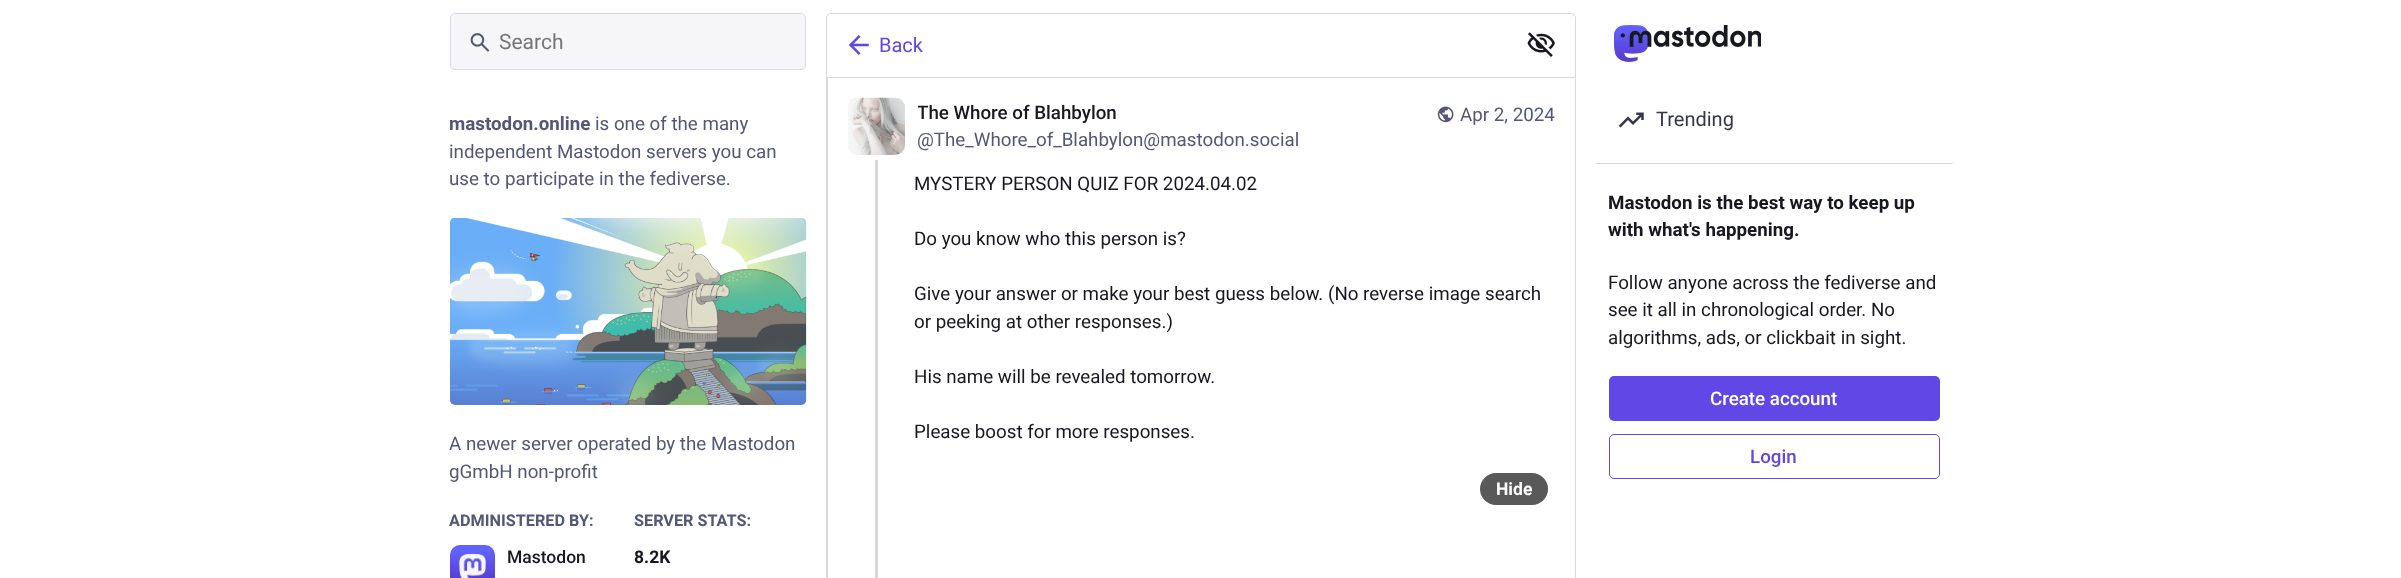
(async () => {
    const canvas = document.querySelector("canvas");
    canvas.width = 2401;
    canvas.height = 578;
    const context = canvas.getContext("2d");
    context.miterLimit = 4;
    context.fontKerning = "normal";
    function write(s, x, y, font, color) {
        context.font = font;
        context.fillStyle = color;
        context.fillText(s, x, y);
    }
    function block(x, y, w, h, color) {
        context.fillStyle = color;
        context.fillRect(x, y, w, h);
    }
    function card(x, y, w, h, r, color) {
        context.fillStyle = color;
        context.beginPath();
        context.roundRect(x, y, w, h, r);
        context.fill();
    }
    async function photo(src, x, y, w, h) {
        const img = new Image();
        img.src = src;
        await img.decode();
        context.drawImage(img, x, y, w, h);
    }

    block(0, 0, 2401, 578, "rgb(255, 255, 255)");
    context.fillStyle = "rgb(246, 246, 248)";
    context.beginPath();
    context.roundRect(450.5, 13.5, 355, 56, 4.5);
    context.fill();
    context.strokeStyle = "rgb(216, 217, 227)";
    context.stroke();
    await photo("media/1.png", 470, 33, 20, 19);
    write("Search", 499, 49, "21px Roboto", "rgb(117, 117, 117)");
    write("mastodon.online", 449, 130, "bold 18.75px Roboto", "rgb(84, 87, 120)");
    write("is one of the many", 595, 130, "18.75px Roboto", "rgb(84, 87, 120)");
    write("independent Mastodon servers you can", 449, 158, "18.75px Roboto", "rgb(84, 87, 120)");
    write("use to participate in the fediverse.", 449, 185, "18.75px Roboto", "rgb(84, 87, 120)");
    await photo("media/2.png", 450, 218, 357, 187);
    write("A newer server operated by the Mastodon", 449, 450, "18.75px Roboto", "rgb(84, 87, 120)");
    write("gGmbH non-profit", 449, 478, "18.75px Roboto", "rgb(84, 87, 120)");
    write("ADMINISTERED BY:", 449, 526, "bold 16.25px Roboto", "rgb(84, 87, 120)");
    context.fillStyle = "rgb(236, 237, 241)";
    context.beginPath();
    context.moveTo(460, 545);
    context.lineTo(485, 545);
    context.bezierCurveTo(490.5, 545, 495, 549.5, 495, 555);
    context.lineTo(495, 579);
    context.lineTo(450, 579);
    context.lineTo(450, 555);
    context.bezierCurveTo(450, 549.5, 454.5, 545, 460, 545);
    context.closePath();
    context.fill();
    await photo("media/3.png", 450, 545, 45, 33);
    write("Mastodon", 507, 563, "500 17.5px Roboto", "rgb(24, 24, 33)");
    write("SERVER STATS:", 634, 526, "bold 16.25px Roboto", "rgb(84, 87, 120)");
    write("8.2K", 634, 563, "bold 17.5px Roboto", "rgb(24, 24, 33)");
    context.beginPath();
    context.roundRect(826.5, 13.5, 749, 64, [4.5, 4.5, 0, 0]);
    context.strokeStyle = "rgb(216, 216, 218)";
    context.stroke();
    await photo("media/4.png", 848, 35, 21, 20);
    write("Back", 879, 52, "20px Roboto", "rgb(97, 71, 230)");
    await photo("media/5.png", 1527, 32, 28, 25);
    context.fillStyle = "rgb(216, 216, 218)";
    context.beginPath();
    context.moveTo(826, 78);
    context.lineTo(1576, 78);
    context.lineTo(1576, 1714);
    context.bezierCurveTo(1576, 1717, 1574, 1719, 1571, 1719);
    context.lineTo(831, 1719);
    context.bezierCurveTo(828, 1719, 826, 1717, 826, 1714);
    context.closePath();
    context.moveTo(828, 78);
    context.lineTo(1575, 78);
    context.lineTo(1575, 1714);
    context.bezierCurveTo(1575, 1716, 1573, 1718, 1571, 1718);
    context.lineTo(831, 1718);
    context.bezierCurveTo(829, 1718, 828, 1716, 828, 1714);
    context.closePath();
    context.fill("evenodd");
    card(848, 98, 57, 57, 10, "rgb(236, 237, 241)");
    await photo("media/6.png", 848, 97, 57, 58);
    context.save();
    context.beginPath();
    context.rect(918, 99, 381, 55);
    context.clip();
    write("The Whore of Blahbylon", 917, 119, "500 18.75px Roboto", "rgb(24, 24, 33)");
    context.restore();
    write("@The_Whore_of_Blahbylon@mastodon.social", 917, 146, "18.75px Roboto", "rgb(84, 87, 120)");
    await photo("media/7.png", 1437, 106, 17, 17);
    write("Apr 2, 2024", 1460, 121, "18.75px Roboto", "rgb(84, 87, 120)");
    block(875, 160, 3, 418, "rgb(216, 216, 218)");
    write("MYSTERY PERSON QUIZ FOR 2024.04.02", 914, 190, "18.75px Roboto", "rgb(24, 24, 33)");
    write("Do you know who this person is?", 914, 245, "18.75px Roboto", "rgb(24, 24, 33)");
    write("Give your answer or make your best guess below. (No reverse image search", 914, 300, "18.75px Roboto", "rgb(24, 24, 33)");
    write("or peeking at other responses.)", 914, 328, "18.75px Roboto", "rgb(24, 24, 33)");
    write("His name will be revealed tomorrow.", 914, 383, "18.75px Roboto", "rgb(24, 24, 33)");
    write("Please boost for more responses.", 914, 438, "18.75px Roboto", "rgb(24, 24, 33)");
    card(1480, 473, 68, 32, 16, "rgb(89, 89, 89)");
    write("Hide", 1496, 495, "bold 17.5px Roboto", "rgb(255, 255, 255)");
    await photo("media/8.png", 1614, 25, 147, 37);
    await photo("media/9.png", 1618, 112, 26, 16);
    write("Trending", 1656, 126, "20px Roboto", "rgb(53, 54, 74)");
    block(1596, 163, 357, 1, "rgb(216, 216, 218)");
    write("Mastodon is the best way to keep up", 1608, 209, "bold 18.75px Roboto", "rgb(24, 24, 33)");
    write("with what's happening.", 1608, 236, "bold 18.75px Roboto", "rgb(24, 24, 33)");
    write("Follow anyone across the fediverse and", 1608, 289, "18.75px Roboto", "rgb(24, 24, 33)");
    write("see it all in chronological order. No", 1608, 316, "18.75px Roboto", "rgb(24, 24, 33)");
    write("algorithms, ads, or clickbait in sight.", 1608, 344, "18.75px Roboto", "rgb(24, 24, 33)");
    card(1609, 376, 331, 45, 5, "rgb(97, 71, 230)");
    write("Create account", 1710, 405, "500 18.75px Roboto", "rgb(255, 255, 255)");
    context.beginPath();
    context.roundRect(1609.5, 434.5, 330, 44, 4.5);
    context.strokeStyle = "rgb(97, 71, 230)";
    context.stroke();
    write("Login", 1750, 463, "500 18.75px Roboto", "rgb(97, 71, 230)");
})();
